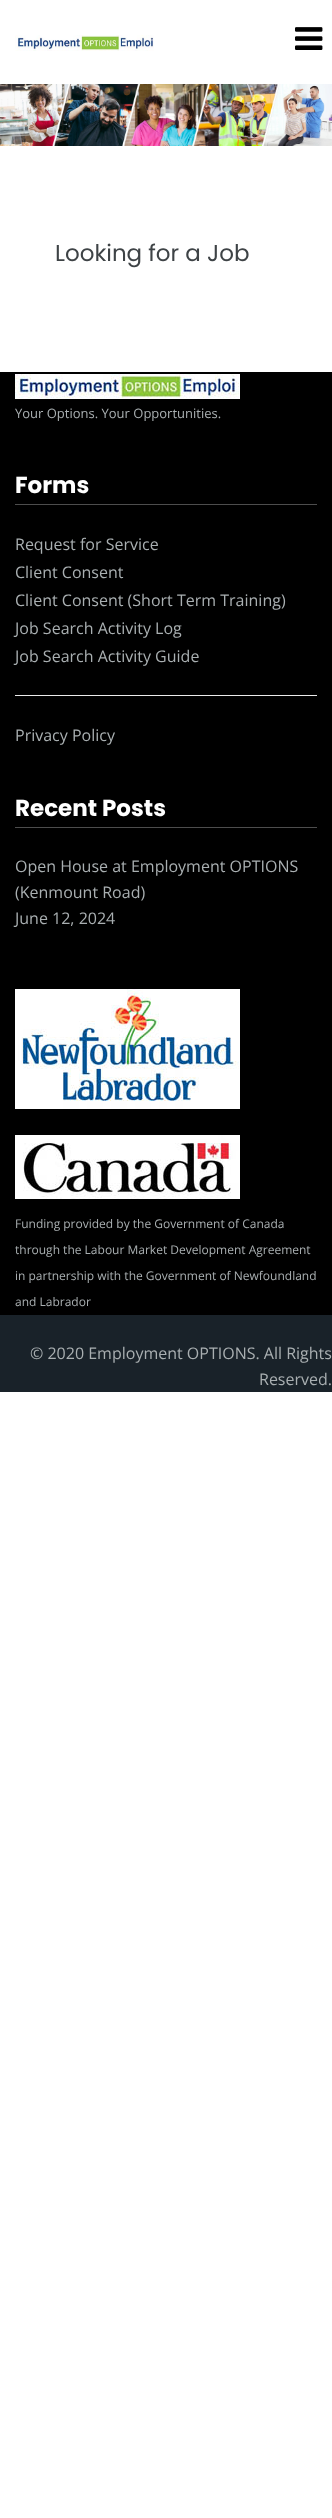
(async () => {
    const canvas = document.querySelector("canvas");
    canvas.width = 332;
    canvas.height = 2518;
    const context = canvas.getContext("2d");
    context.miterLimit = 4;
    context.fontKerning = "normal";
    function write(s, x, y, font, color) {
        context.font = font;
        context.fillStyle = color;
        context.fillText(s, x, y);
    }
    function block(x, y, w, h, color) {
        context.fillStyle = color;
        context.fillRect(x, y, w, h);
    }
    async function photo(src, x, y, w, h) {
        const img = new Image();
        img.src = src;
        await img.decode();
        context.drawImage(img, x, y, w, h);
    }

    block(0, 0, 332, 2518, "rgb(255, 255, 255)");
    await photo("media/1.png", 15, 35, 139, 16);
    await photo("media/2.png", 295, 27, 28, 23);
    await photo("media/3.png", 0, 84, 332, 62);
    write("Looking for a Job", 55, 261, "23px Poppins", "rgb(62, 67, 70)");
    block(0, 372, 332, 943, "rgb(0, 0, 0)");
    await photo("media/4.png", 15, 374, 225, 25);
    write("Your Options. Your Opportunities.", 15, 418, "13px Open Sans", "rgb(169, 175, 177)");
    block(15, 504, 302, 1, "rgb(77, 77, 77)");
    write("Forms", 15, 493, "bold 23px Poppins", "rgb(255, 255, 255)");
    write("Request for Service", 15, 550, "16px Open Sans", "rgb(169, 175, 177)");
    write("Client Consent", 15, 578, "16px Open Sans", "rgb(169, 175, 177)");
    write("Client Consent (Short Term Training)", 15, 606, "16px Open Sans", "rgb(169, 175, 177)");
    write("Job Search Activity Log", 15, 634, "16px Open Sans", "rgb(169, 175, 177)");
    write("Job Search Activity Guide", 15, 662, "16px Open Sans", "rgb(169, 175, 177)");
    block(15, 695, 302, 1, "rgb(235, 235, 235)");
    write("Privacy Policy", 15, 741, "16px Open Sans", "rgb(169, 175, 177)");
    block(15, 827, 302, 1, "rgb(77, 77, 77)");
    write("Recent Posts", 15, 816, "bold 23px Poppins", "rgb(255, 255, 255)");
    write("Open House at Employment OPTIONS", 15, 872, "16px Open Sans", "rgb(169, 175, 177)");
    write("(Kenmount Road)", 15, 898, "16px Open Sans", "rgb(169, 175, 177)");
    write("June 12, 2024", 15, 924, "16px Open Sans", "rgb(169, 175, 177)");
    await photo("media/5.png", 15, 989, 225, 120);
    await photo("media/6.png", 15, 1135, 225, 64);
    write("Funding provided by the Government of Canada", 15, 1228, "12px Open Sans", "rgb(169, 175, 177)");
    write("through the Labour Market Development Agreement", 15, 1254, "12px Open Sans", "rgb(169, 175, 177)");
    write("in partnership with the Government of Newfoundland", 15, 1280, "12px Open Sans", "rgb(169, 175, 177)");
    write("and Labrador", 15, 1306, "12px Open Sans", "rgb(169, 175, 177)");
    block(0, 1315, 332, 77, "rgb(25, 34, 41)");
    write("© 2020 Employment OPTIONS. All Rights", 30, 1359, "16px Open Sans", "rgb(169, 175, 177)");
    write("Reserved.", 259, 1385, "16px Open Sans", "rgb(169, 175, 177)");
})();
